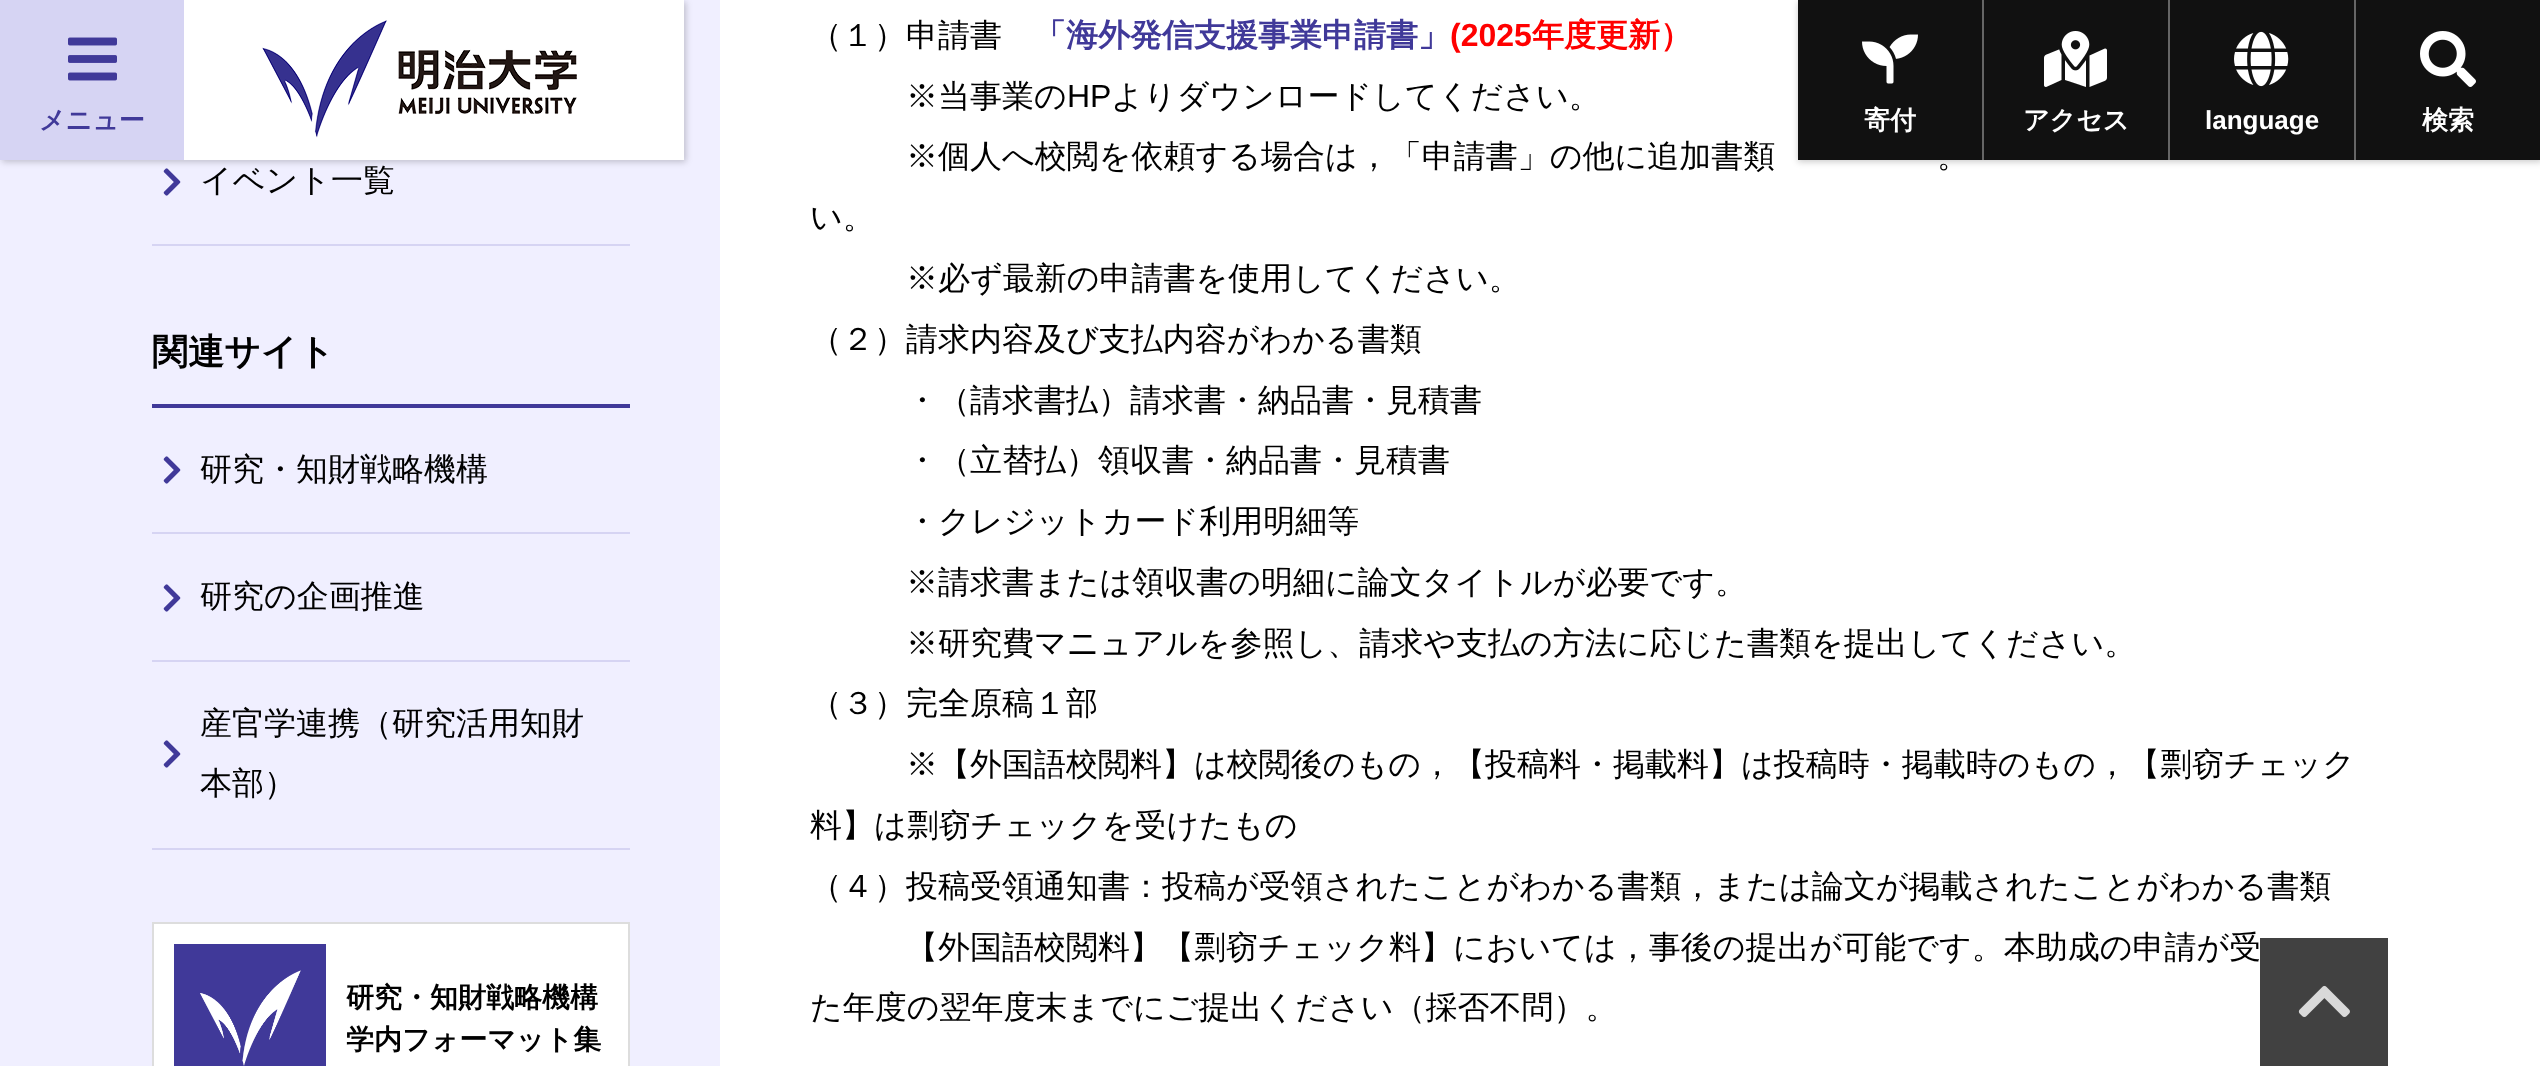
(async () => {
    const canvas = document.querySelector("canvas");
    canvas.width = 2540;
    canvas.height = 1066;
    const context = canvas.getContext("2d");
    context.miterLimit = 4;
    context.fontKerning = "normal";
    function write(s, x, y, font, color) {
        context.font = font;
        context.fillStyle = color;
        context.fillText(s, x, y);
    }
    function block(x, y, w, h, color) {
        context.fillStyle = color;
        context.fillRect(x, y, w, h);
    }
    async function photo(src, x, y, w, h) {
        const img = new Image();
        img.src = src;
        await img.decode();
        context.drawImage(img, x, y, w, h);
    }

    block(0, 0, 2540, 1066, "rgb(240, 239, 255)");
    block(152, 244, 478, 2, "rgb(214, 212, 243)");
    await photo("media/1.png", 163, 168, 18, 28);
    write("イベント一覧", 200, 191, "500 32px WenQuanYi Zen Hei", "rgb(0, 0, 0)");
    block(152, 404, 478, 4, "rgb(64, 57, 153)");
    write("関連サイト", 152, 364, "bold 36px WenQuanYi Zen Hei", "rgb(0, 0, 0)");
    block(152, 532, 478, 2, "rgb(214, 212, 243)");
    await photo("media/1.png", 163, 456, 18, 28);
    write("研究・知財戦略機構", 200, 480, "500 32px WenQuanYi Zen Hei", "rgb(0, 0, 0)");
    block(152, 660, 478, 2, "rgb(214, 212, 243)");
    await photo("media/1.png", 163, 584, 18, 28);
    write("研究の企画推進", 200, 607, "500 32px WenQuanYi Zen Hei", "rgb(0, 0, 0)");
    block(152, 848, 478, 2, "rgb(214, 212, 243)");
    write("産官学連携（研究活用知財", 200, 734, "500 32px WenQuanYi Zen Hei", "rgb(0, 0, 0)");
    await photo("media/1.png", 163, 740, 18, 28);
    write("本部）", 200, 794, "500 32px WenQuanYi Zen Hei", "rgb(0, 0, 0)");
    context.fillStyle = "rgb(255, 255, 255)";
    context.beginPath();
    context.rect(153, 923, 476, 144);
    context.fill();
    context.strokeStyle = "rgb(221, 221, 221)";
    context.lineWidth = 2;
    context.stroke();
    await photo("media/2.png", 174, 944, 152, 122);
    write("研究・知財戦略機構", 346, 1007, "bold 28px WenQuanYi Zen Hei", "rgb(0, 0, 0)");
    write("学内フォーマット集", 346, 1049, "bold 28px WenQuanYi Zen Hei", "rgb(0, 0, 0)");
    block(720, 0, 1820, 1066, "rgb(255, 255, 255)");
    write("（１）申請書", 810, 46, "500 32px WenQuanYi Zen Hei", "rgb(0, 0, 0)");
    write("「海外発信支援事業申請書」", 1034, 46, "bold 32px WenQuanYi Zen Hei", "rgb(64, 57, 153)");
    write("(2025", 1450, 46, "bold 32px Liberation Sans", "rgb(255, 0, 0)");
    write("年度更新）", 1532, 46, "bold 32px WenQuanYi Zen Hei", "rgb(255, 0, 0)");
    write("※当事業の", 906, 107, "500 32px WenQuanYi Zen Hei", "rgb(0, 0, 0)");
    write("HP", 1067, 107, "32px Liberation Sans", "rgb(0, 0, 0)");
    write("よりダウンロードしてください。", 1111, 107, "500 32px WenQuanYi Zen Hei", "rgb(0, 0, 0)");
    write("※個人へ校閲を依頼する場合は，「申請書」の他に追加書類", 906, 167, "500 32px WenQuanYi Zen Hei", "rgb(0, 0, 0)");
    write("。", 1937, 167, "500 32px WenQuanYi Zen Hei", "rgb(0, 0, 0)");
    write("い。", 810, 228, "500 32px WenQuanYi Zen Hei", "rgb(0, 0, 0)");
    write("※必ず最新の申請書を使用してください。", 906, 289, "500 32px WenQuanYi Zen Hei", "rgb(0, 0, 0)");
    write("（２）請求内容及び支払内容がわかる書類", 810, 350, "500 32px WenQuanYi Zen Hei", "rgb(0, 0, 0)");
    write("・（請求書払）請求書・納品書・見積書", 906, 411, "500 32px WenQuanYi Zen Hei", "rgb(0, 0, 0)");
    write("・（立替払）領収書・納品書・見積書", 906, 471, "500 32px WenQuanYi Zen Hei", "rgb(0, 0, 0)");
    write("・クレジットカード利用明細等", 906, 532, "500 32px WenQuanYi Zen Hei", "rgb(0, 0, 0)");
    write("※請求書または領収書の明細に論文タイトルが必要です。", 906, 593, "500 32px WenQuanYi Zen Hei", "rgb(0, 0, 0)");
    write("※研究費マニュアルを参照し、請求や支払の方法に応じた書類を提出してください。", 906, 654, "500 32px WenQuanYi Zen Hei", "rgb(0, 0, 0)");
    write("（３）完全原稿１部", 810, 714, "500 32px WenQuanYi Zen Hei", "rgb(0, 0, 0)");
    write("※【外国語校閲料】は校閲後のもの，【投稿料・掲載料】は投稿時・掲載時のもの，【剽窃チェック", 906, 775, "500 32px WenQuanYi Zen Hei", "rgb(0, 0, 0)");
    write("料】は剽窃チェックを受けたもの", 810, 836, "500 32px WenQuanYi Zen Hei", "rgb(0, 0, 0)");
    write("（４）投稿受領通知書：投稿が受領されたことがわかる書類，または論文が掲載されたことがわかる書類", 810, 897, "500 32px WenQuanYi Zen Hei", "rgb(0, 0, 0)");
    write("【外国語校閲料】【剽窃チェック料】においては，事後の提出が可能です。本助成の申請が受", 906, 958, "500 32px WenQuanYi Zen Hei", "rgb(0, 0, 0)");
    write("た年度の翌年度末までにご提出ください（採否不問）。", 810, 1018, "500 32px WenQuanYi Zen Hei", "rgb(0, 0, 0)");
    block(2260, 938, 128, 128, "rgba(17, 17, 17, 0.8)");
    await photo("media/3.png", 2298, 985, 52, 32);
    context.fillStyle = "rgba(0, 0, 0, 0.2)";
    context.filter = "blur(3px)";
    context.beginPath();
    context.rect(2, 2, 684, 160);
    context.fill();
    context.filter = "none";
    block(0, 0, 184, 160, "rgb(214, 212, 243)");
    await photo("media/4.png", 68, 37, 49, 44);
    write("メニュー", 39, 129, "bold 26px WenQuanYi Zen Hei", "rgb(64, 57, 153)");
    block(184, 0, 500, 160, "rgb(255, 255, 255)");
    await photo("media/5.png", 262, 20, 315, 118);
    context.fillStyle = "rgba(0, 0, 0, 0.2)";
    context.filter = "blur(3px)";
    context.beginPath();
    context.rect(1798, 2, 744, 160);
    context.fill();
    context.filter = "none";
    block(1798, 0, 184, 160, "rgb(17, 17, 17)");
    await photo("media/6.png", 1862, 34, 56, 50);
    write("寄付", 1864, 129, "bold 26px WenQuanYi Zen Hei", "rgb(255, 255, 255)");
    block(1982, 0, 2, 160, "rgb(102, 102, 102)");
    block(1984, 0, 184, 160, "rgb(17, 17, 17)");
    await photo("media/7.png", 2044, 31, 63, 56);
    write("アクセス", 2023, 129, "bold 26px WenQuanYi Zen Hei", "rgb(255, 255, 255)");
    block(2168, 0, 2, 160, "rgb(102, 102, 102)");
    block(2170, 0, 184, 160, "rgb(17, 17, 17)");
    await photo("media/8.png", 2234, 31, 55, 56);
    write("language", 2205, 129, "bold 26px Liberation Sans", "rgb(255, 255, 255)");
    block(2354, 0, 2, 160, "rgb(102, 102, 102)");
    block(2356, 0, 184, 160, "rgb(17, 17, 17)");
    await photo("media/9.png", 2420, 31, 56, 56);
    write("検索", 2422, 129, "bold 26px WenQuanYi Zen Hei", "rgb(255, 255, 255)");
})();
